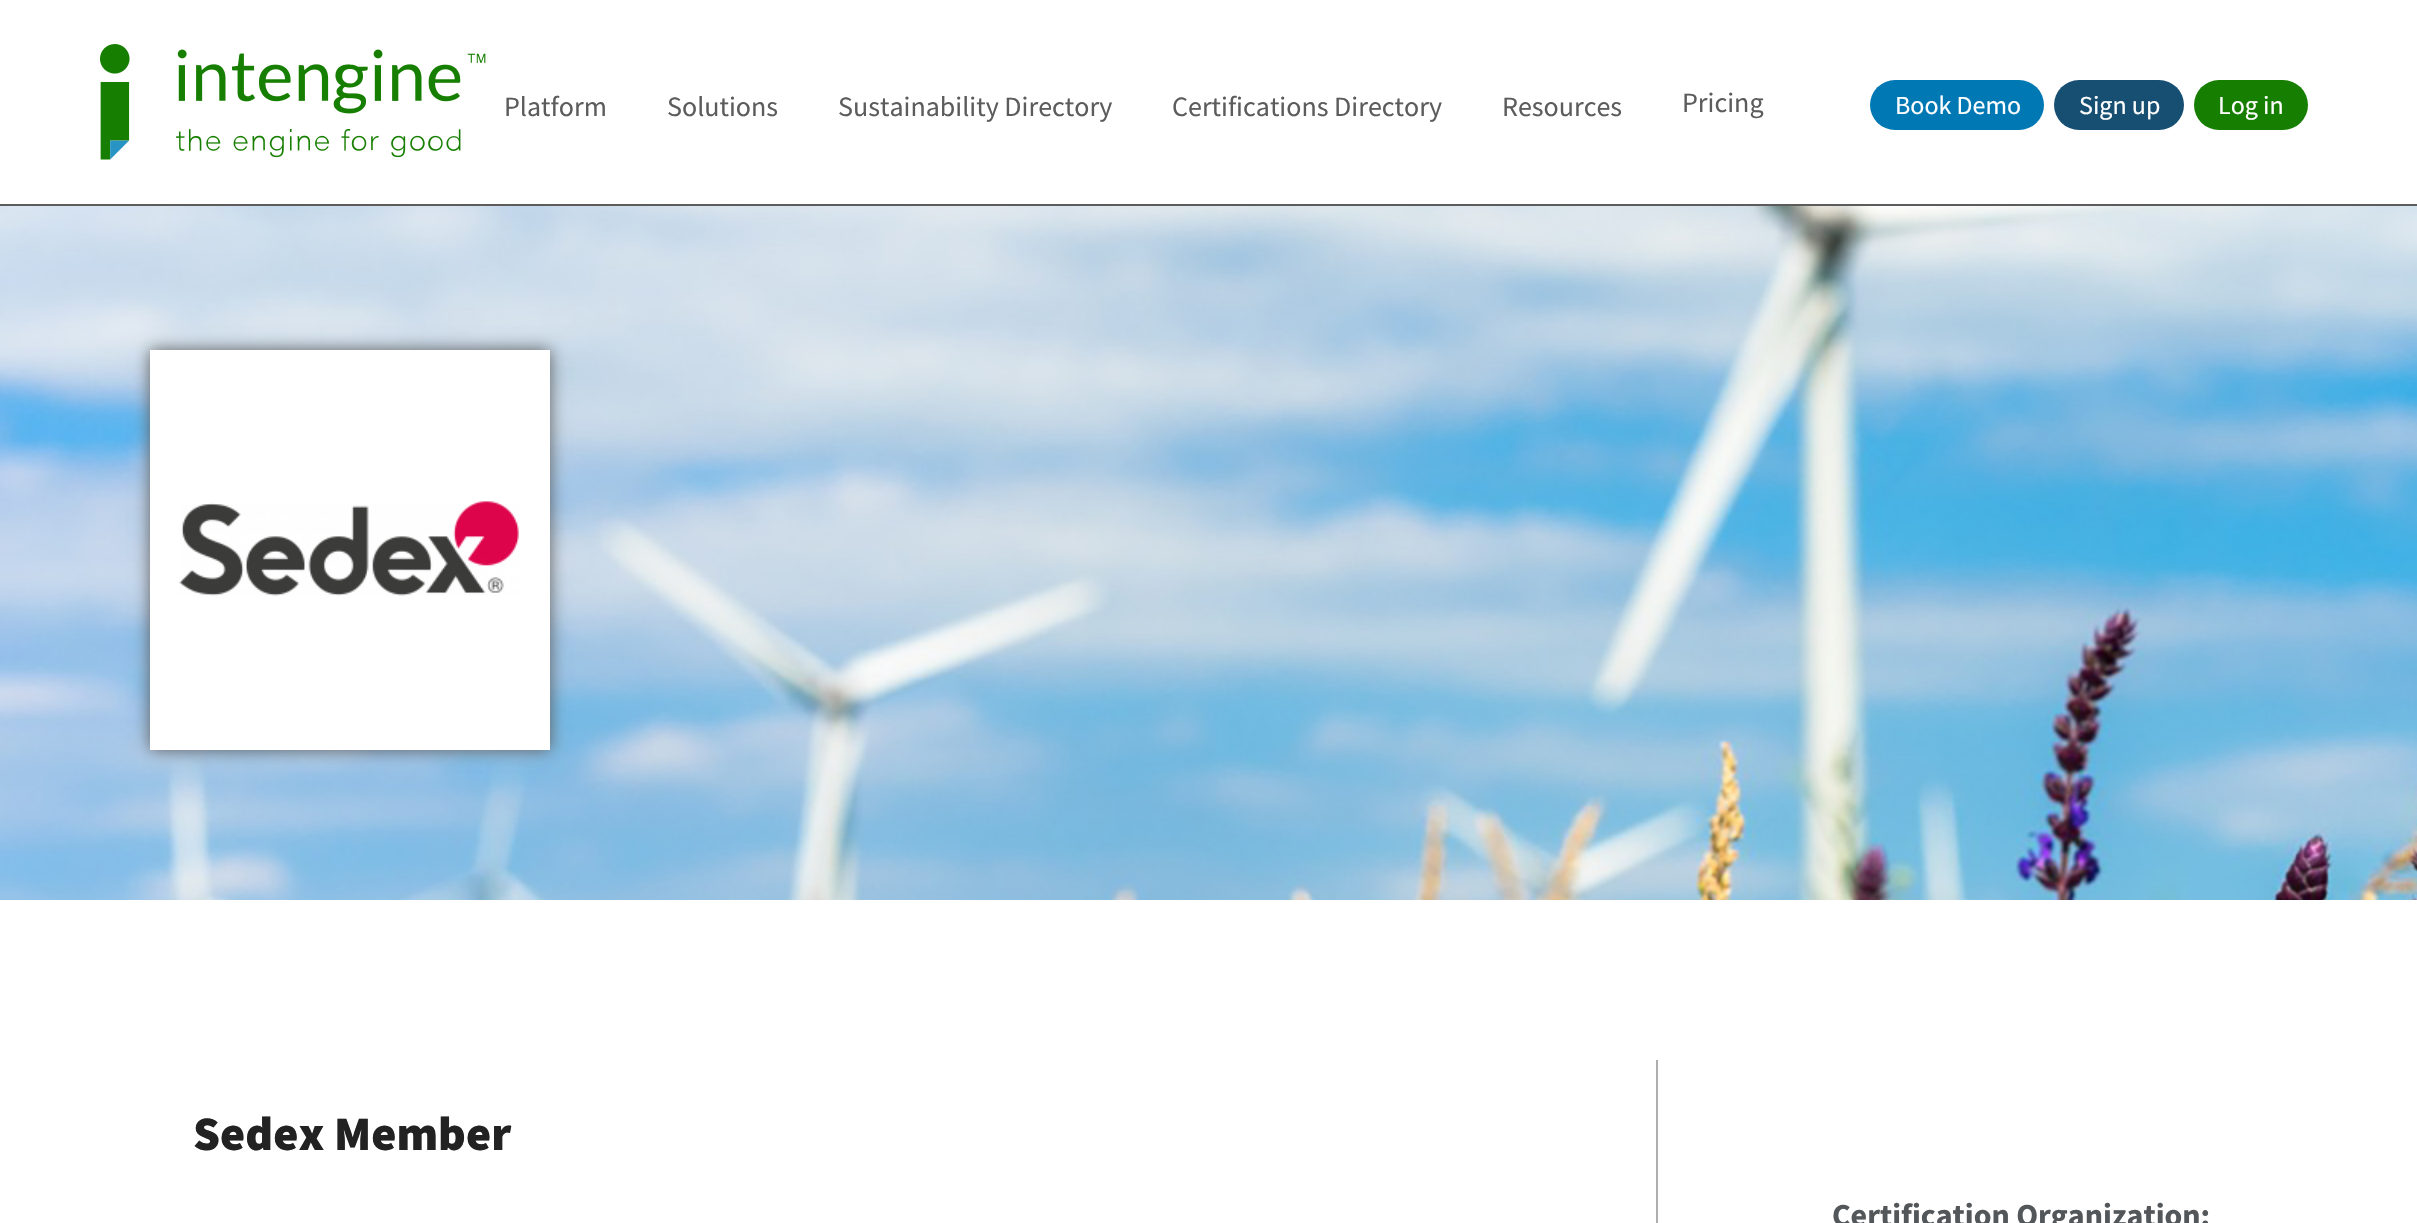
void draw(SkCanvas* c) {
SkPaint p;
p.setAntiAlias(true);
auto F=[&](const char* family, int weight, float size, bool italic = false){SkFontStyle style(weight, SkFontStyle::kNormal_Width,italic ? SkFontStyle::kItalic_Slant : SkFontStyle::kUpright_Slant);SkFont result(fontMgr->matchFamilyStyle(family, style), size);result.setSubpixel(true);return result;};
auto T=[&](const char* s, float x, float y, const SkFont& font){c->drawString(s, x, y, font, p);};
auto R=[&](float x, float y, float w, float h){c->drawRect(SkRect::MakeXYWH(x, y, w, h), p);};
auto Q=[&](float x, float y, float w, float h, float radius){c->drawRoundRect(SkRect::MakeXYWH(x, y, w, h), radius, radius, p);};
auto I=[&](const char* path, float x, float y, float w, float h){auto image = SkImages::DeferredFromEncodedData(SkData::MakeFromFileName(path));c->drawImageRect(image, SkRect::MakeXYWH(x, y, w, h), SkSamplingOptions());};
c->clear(0xffffffff);
p.setColor(0xff5c5c5c);
R(0,204,2417,2);
I("1.png",100,44,386,116);
auto f1 = F("Source Sans Pro",400,28);
T("Platform",504,116,f1);
T("Solutions",667,116,f1);
T("Sustainability Directory",838,116,f1);
T("Certifications Directory",1172,116,f1);
T("Resources",1502,116,f1);
T("Pricing",1682,112,f1);
p.setColor(0xff0078b4);
Q(1870,80,174,50,25);
auto f2 = F("Source Sans Pro",400,26);
p.setColor(0xffffffff);
T("Book Demo",1895,114,f2);
p.setColor(0xff174f73);
Q(2054,80,130,50,25);
p.setColor(0xffffffff);
T("Sign up",2079,114,f2);
p.setColor(0xff167e00);
Q(2194,80,114,50,25);
p.setColor(0xffffffff);
T("Log in",2218,114,f2);
I("2.png",0,206,2417,694);
p.setColor(0xff5c5c5c);
p.setMaskFilter(SkMaskFilter::MakeBlur(kNormal_SkBlurStyle, 8));
c->drawRect(SkRect::MakeXYWH(150,350,400,400),p);
p.setMaskFilter(nullptr);
p.setColor(0xffffffff);
R(150,350,400,400);
I("3.png",179,501,340,95);
p.setColor(0xffaeaeae);
R(1656,1060,2,163);
auto f3 = F("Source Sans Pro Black",900,48);
p.setColor(0xff222222);
T("Sedex Member",193,1150,f3);
auto f4 = F("Source Sans Pro",700,32);
p.setColor(0xff53575a);
T("Certification Organization:",1832,1226,f4);
}
